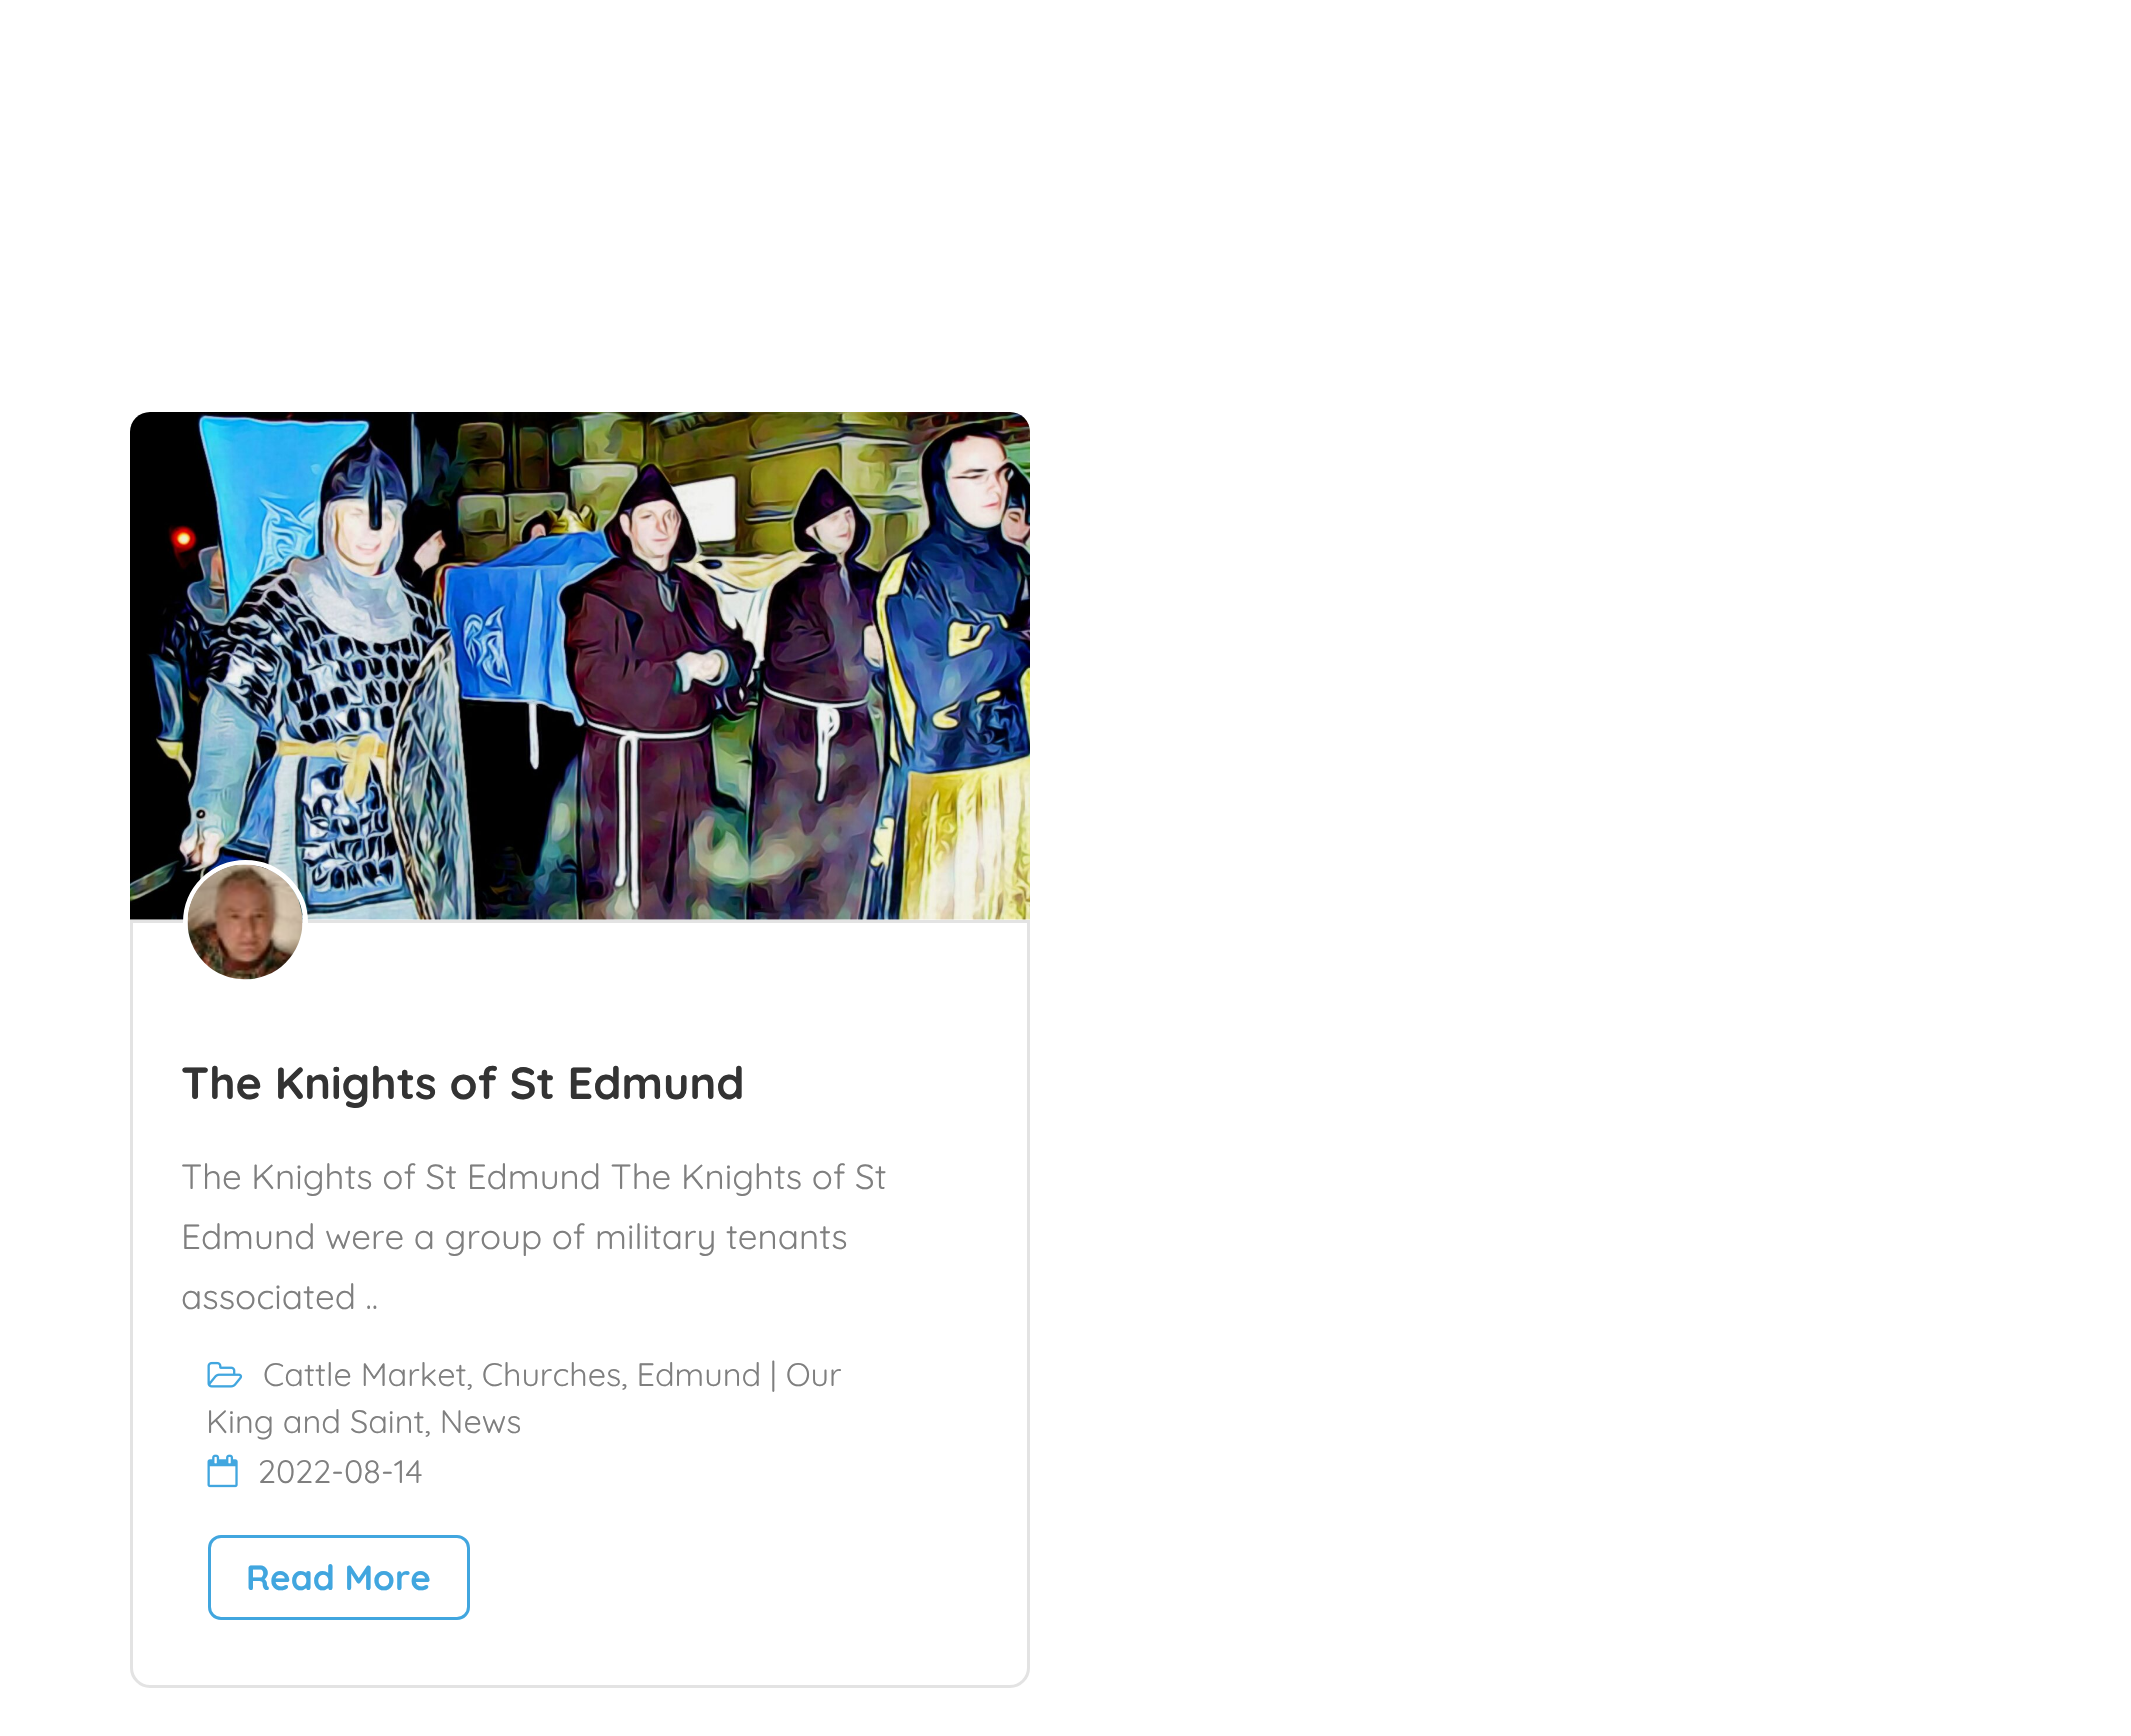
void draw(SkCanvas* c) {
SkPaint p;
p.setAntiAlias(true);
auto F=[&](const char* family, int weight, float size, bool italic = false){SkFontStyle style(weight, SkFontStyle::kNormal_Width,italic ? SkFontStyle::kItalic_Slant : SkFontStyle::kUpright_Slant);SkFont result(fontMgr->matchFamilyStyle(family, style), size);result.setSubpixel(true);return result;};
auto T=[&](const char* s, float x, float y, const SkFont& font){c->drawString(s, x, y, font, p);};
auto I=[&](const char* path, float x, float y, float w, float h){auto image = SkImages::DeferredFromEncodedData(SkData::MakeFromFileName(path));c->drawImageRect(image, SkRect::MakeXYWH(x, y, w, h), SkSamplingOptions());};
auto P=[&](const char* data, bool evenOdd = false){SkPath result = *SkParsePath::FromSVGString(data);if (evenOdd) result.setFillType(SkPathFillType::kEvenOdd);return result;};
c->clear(0xffffffff);
I("1.png",130,412,900,508);
p.setStroke(true);
p.setStrokeWidth(3);
p.setColor(0xffe3e3e3);
c->drawPath(P("M131.5 921.5h897v746.5c0 10-8.5 18.5-18.5 18.5h-860c-10 0-18.5-8.5-18.5-18.5z"),p);
p.setStrokeWidth(5);
p.setColor(0xffffffff);
c->drawCircle(245.5,922.5,60,p);
I("2.png",187,864,116,116);
auto f1 = F("Quicksand",700,45);
p.setStroke(false);
p.setColor(0xff333333);
T("The Knights of St Edmund",181,1099,f1);
auto f2 = F("Quicksand",400,35);
p.setColor(0xff7f7f7f);
T("The Knights of St Edmund The Knights of St",181,1189,f2);
T("Edmund were a group of military tenants",181,1249,f2);
T("associated ..",181,1309,f2);
I("3.png",207,1361,36,27);
auto f3 = F("Quicksand",400,32.5);
T("Cattle Market, Churches, Edmund | Our",263,1386,f3);
T("King and Saint, News",206,1433,f3);
I("4.png",207,1454,31,34);
T("2022-08-14",258,1483,f3);
p.setStroke(true);
p.setStrokeWidth(3);
p.setColor(0xff41a6df);
c->drawRoundRect(SkRect::MakeXYWH(209.5,1536.5,259,82),11.5,11.5,p);
auto f4 = F("Quicksand",700,35);
p.setStroke(false);
T("Read More",246,1590,f4);
}
